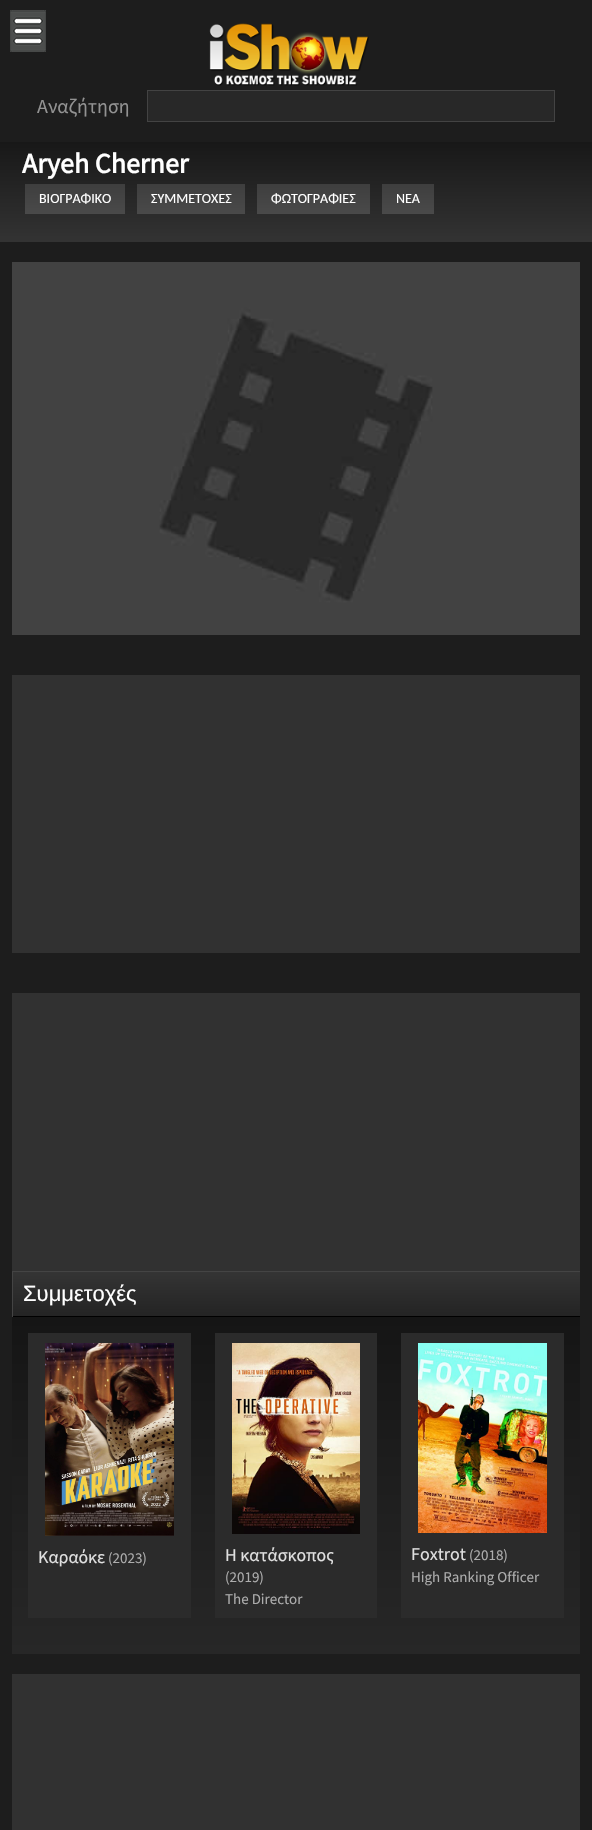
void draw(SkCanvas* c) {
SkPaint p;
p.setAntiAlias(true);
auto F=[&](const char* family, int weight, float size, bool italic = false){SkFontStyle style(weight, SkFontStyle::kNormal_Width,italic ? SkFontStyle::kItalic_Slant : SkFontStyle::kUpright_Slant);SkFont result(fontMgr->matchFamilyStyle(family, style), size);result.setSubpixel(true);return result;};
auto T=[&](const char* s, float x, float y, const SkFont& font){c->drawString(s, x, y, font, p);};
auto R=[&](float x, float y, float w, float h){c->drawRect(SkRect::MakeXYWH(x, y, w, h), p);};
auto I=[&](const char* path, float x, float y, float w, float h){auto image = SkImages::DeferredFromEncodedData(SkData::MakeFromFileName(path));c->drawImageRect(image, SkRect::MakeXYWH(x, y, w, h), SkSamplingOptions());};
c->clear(0xff1d1d1d);
I("1.png",10,10,36,42);
I("2.png",209,23,160,63);
auto f1 = F("Source Sans Pro",400,20);
p.setColor(0xff929292);
T("Αναζήτηση",37,113,f1);
p.setColor(0xff282828);
c->drawRect(SkRect::MakeXYWH(147.5,90.5,407,31),p);
p.setStroke(true);
p.setStrokeWidth(1);
p.setColor(0xff434343);
c->drawRect(SkRect::MakeXYWH(147.5,90.5,407,31),p);
p.setStroke(false);
{
const SkColor colors[] = {0xff181818,0xff333333};
const float stops[] = {0,1};
const SkPoint ends[] = {{296,142}, {296,242}};
p.setShader(SkGradientShader::MakeLinear(ends, colors, stops, 2, SkTileMode::kClamp));
p.setAlpha(255);
}
R(0,142,592,100);
auto f2 = F("Source Sans Pro",700,28);
p.setShader(nullptr);
p.setColor(0xffffffff);
T("Aryeh Cherner",22,173,f2);
{
const SkColor colors[] = {0xff3e3e3e,0xff4a4a4a};
const float stops[] = {0,1};
const SkPoint ends[] = {{75,184}, {75,214}};
p.setShader(SkGradientShader::MakeLinear(ends, colors, stops, 2, SkTileMode::kClamp));
p.setAlpha(255);
}
R(25,184,100,30);
auto f3 = F("Carlito",400,14);
p.setShader(nullptr);
p.setColor(0xffffffff);
T("ΒΙΟΓΡΑΦΙΚΟ",39,203,f3);
{
const SkColor colors[] = {0xff3e3e3e,0xff4a4a4a};
const float stops[] = {0,1};
const SkPoint ends[] = {{191,184}, {191,214}};
p.setShader(SkGradientShader::MakeLinear(ends, colors, stops, 2, SkTileMode::kClamp));
p.setAlpha(255);
}
R(137,184,108,30);
p.setShader(nullptr);
p.setColor(0xffffffff);
T("ΣΥΜΜΕΤΟΧΕΣ",151,203,f3);
{
const SkColor colors[] = {0xff3e3e3e,0xff4a4a4a};
const float stops[] = {0,1};
const SkPoint ends[] = {{314,184}, {314,214}};
p.setShader(SkGradientShader::MakeLinear(ends, colors, stops, 2, SkTileMode::kClamp));
p.setAlpha(255);
}
R(257,184,113,30);
p.setShader(nullptr);
p.setColor(0xffffffff);
T("ΦΩΤΟΓΡΑΦΙΕΣ",271,203,f3);
{
const SkColor colors[] = {0xff3e3e3e,0xff4a4a4a};
const float stops[] = {0,1};
const SkPoint ends[] = {{408,184}, {408,214}};
p.setShader(SkGradientShader::MakeLinear(ends, colors, stops, 2, SkTileMode::kClamp));
p.setAlpha(255);
}
R(382,184,52,30);
p.setShader(nullptr);
p.setColor(0xffffffff);
T("ΝΕΑ",396,203,f3);
I("3.png",12,262,568,373);
p.setColor(0xff313131);
R(12,675,568,278);
R(12,993,568,278);
{
const SkColor colors[] = {0xff343434,0xff242424};
const float stops[] = {0,1};
const SkPoint ends[] = {{297,1272}, {297,1316}};
p.setShader(SkGradientShader::MakeLinear(ends, colors, stops, 2, SkTileMode::kClamp));
p.setAlpha(255);
}
R(13,1272,567,44);
p.setShader(nullptr);
p.setColor(0xff444444);
R(12,1271,568,1);
p.setColor(0xff000000);
R(12,1316,568,1);
p.setColor(0xff444444);
R(12,1271,1,46);
auto f4 = F("Liberation Sans",400,22);
p.setColor(0xffffffff);
T("Συμμετοχές",23,1301,f4);
{
const SkColor colors[] = {0xff151515,0xff272727};
const float stops[] = {0,1};
const SkPoint ends[] = {{296,1317}, {296,1654}};
p.setShader(SkGradientShader::MakeLinear(ends, colors, stops, 2, SkTileMode::kClamp));
p.setAlpha(255);
}
R(12,1317,568,337);
p.setShader(nullptr);
p.setColor(0xff2b2b2b);
R(28,1333,163,285);
I("4.png",45,1343,129,193);
auto f5 = F("Source Sans Pro",400,18);
p.setColor(0xffe0e0e0);
T("Καραόκε",38,1563,f5);
auto f6 = F("Source Sans Pro",400,15);
p.setColor(0xffadadad);
T("(2023)",108,1563,f6);
p.setColor(0xff2b2b2b);
R(215,1333,162,285);
I("5.png",232,1343,128,191);
p.setColor(0xffe0e0e0);
T("Η κατάσκοπος",225,1561,f5);
p.setColor(0xffadadad);
T("(2019)",225,1582,f6);
T("The Director",225,1604,f6);
p.setColor(0xff2b2b2b);
R(401,1333,163,285);
I("6.png",418,1343,129,190);
p.setColor(0xffe0e0e0);
T("Foxtrot",411,1560,f5);
p.setColor(0xffadadad);
T("(2018)",469,1560,f6);
T("High Ranking Officer",411,1582,f6);
p.setColor(0xff313131);
R(12,1674,568,156);
}
